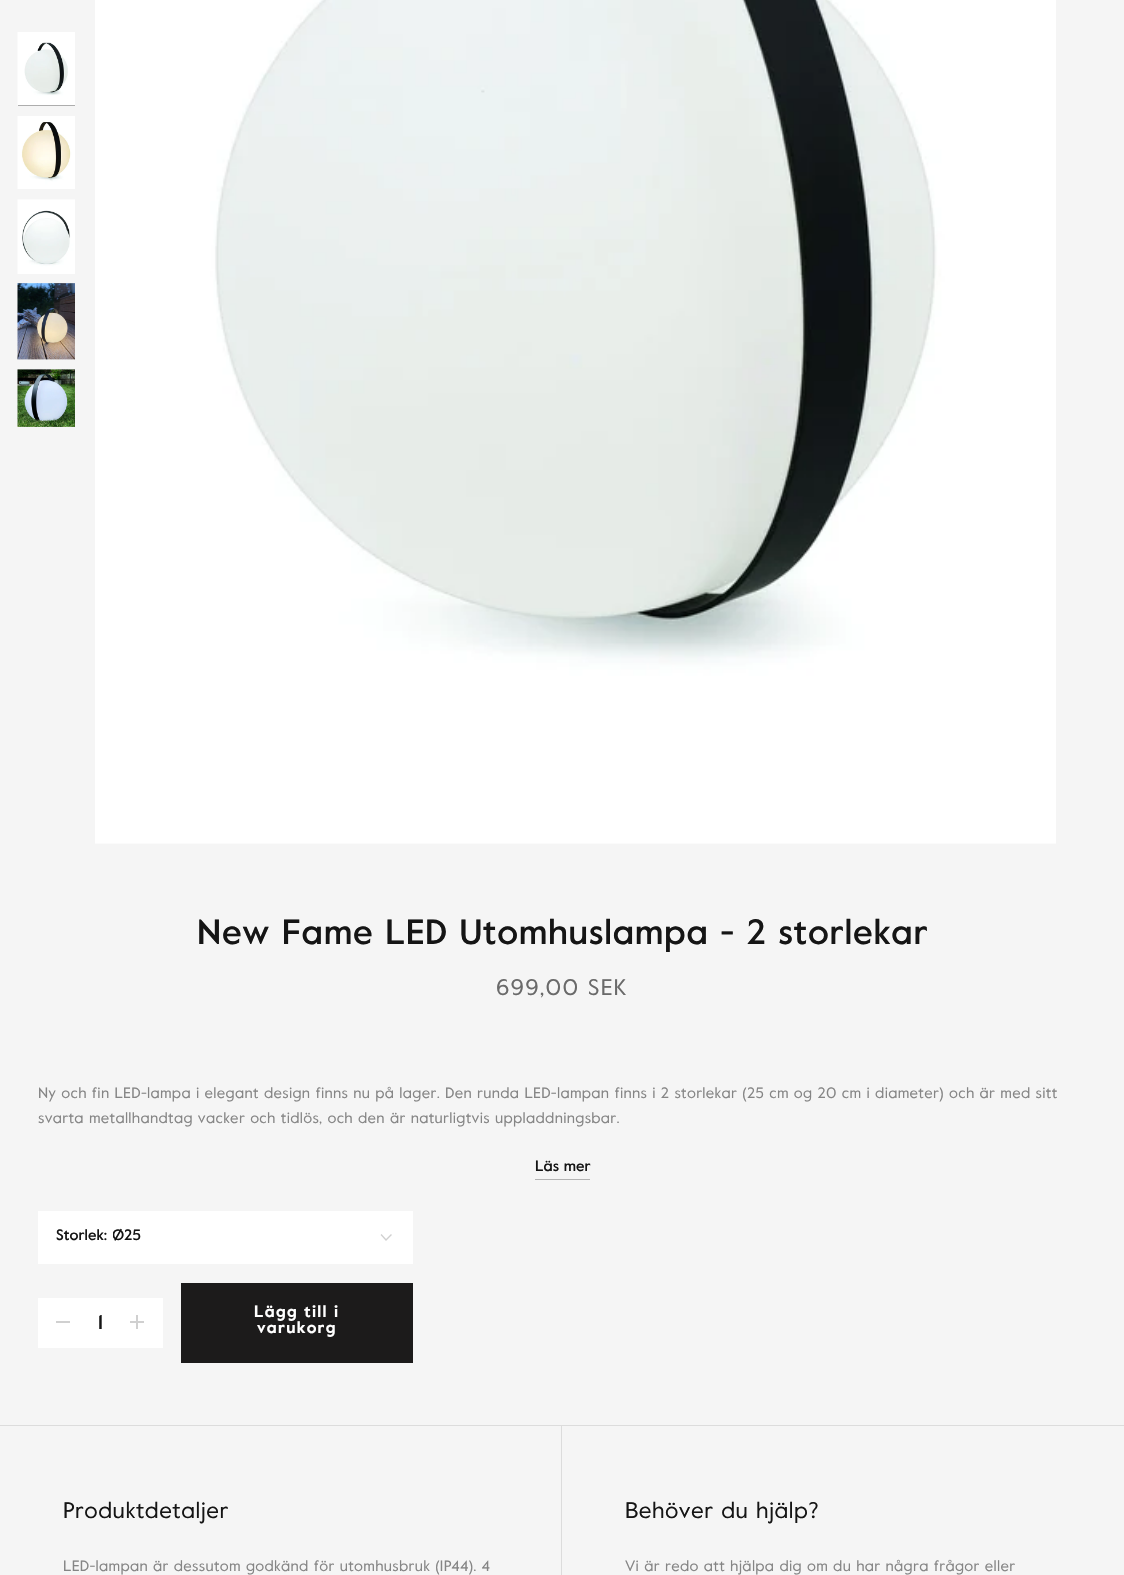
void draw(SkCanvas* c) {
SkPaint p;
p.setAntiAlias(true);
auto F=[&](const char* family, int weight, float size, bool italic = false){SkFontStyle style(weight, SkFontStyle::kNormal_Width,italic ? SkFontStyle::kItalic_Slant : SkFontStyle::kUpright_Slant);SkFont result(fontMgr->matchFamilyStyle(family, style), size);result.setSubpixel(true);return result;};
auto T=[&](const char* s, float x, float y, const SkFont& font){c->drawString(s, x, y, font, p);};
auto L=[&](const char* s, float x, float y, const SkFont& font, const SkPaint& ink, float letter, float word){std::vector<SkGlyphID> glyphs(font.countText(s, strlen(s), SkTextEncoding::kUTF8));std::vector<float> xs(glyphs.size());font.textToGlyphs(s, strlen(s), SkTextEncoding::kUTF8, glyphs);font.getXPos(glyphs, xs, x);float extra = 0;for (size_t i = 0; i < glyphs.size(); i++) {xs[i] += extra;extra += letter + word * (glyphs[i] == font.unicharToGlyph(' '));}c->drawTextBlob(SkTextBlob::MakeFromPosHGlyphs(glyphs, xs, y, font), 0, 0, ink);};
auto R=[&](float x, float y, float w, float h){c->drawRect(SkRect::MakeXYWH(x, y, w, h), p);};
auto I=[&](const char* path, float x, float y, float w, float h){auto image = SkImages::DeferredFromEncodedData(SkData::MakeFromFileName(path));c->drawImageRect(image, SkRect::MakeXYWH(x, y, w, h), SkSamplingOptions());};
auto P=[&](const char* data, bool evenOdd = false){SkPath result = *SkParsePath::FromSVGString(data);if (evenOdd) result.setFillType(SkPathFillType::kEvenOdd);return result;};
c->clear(0xfff5f5f5);
p.setColor(0xff151515);
R(18,105,57,1);
I("1.png",17,32,58,74);
I("2.png",17,116,58,73);
I("3.png",17,199,58,75);
I("4.png",17,283,58,77);
I("5.png",17,369,58,58);
I("6.png",95,0,961,844);
auto f1 = F("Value",500,35);
L("New Fame LED Utomhuslampa - 2 storlekar",197,944,f1,p,.7,0);
auto f2 = F("Value",400,22.5);
p.setColor(0xff6a6a6a);
L("699,00 SEK",496,995,f2,p,1.25,0);
auto f3 = F("Value",400,15);
p.setColor(0xff858585);
L("Ny och fin LED-lampa i elegant design finns nu på lager. Den runda LED-lampan finns i 2 storlekar (25 cm og 20 cm i diameter) och är med sitt",38,1098,f3,p,.31,0);
L("svarta metallhandtag vacker och tidlös, och den är naturligtvis uppladdningsbar.",38,1123,f3,p,.31,0);
auto f4 = F("Value",500,15);
p.setColor(0xff151515);
T("Läs mer",535,1171,f4);
p.setColor(0xffb2b2b2);
R(535,1179,55,1);
p.setColor(0xffffffff);
R(38,1211,375,53);
p.setColor(0xff151515);
T("Storlek:",56,1240,f4);
c->save();
c->clipRect(SkRect::MakeXYWH(113,1225,28,25));
T("Ø25",112,1240,f4);
c->restore();
p.setStroke(true);
p.setStrokeWidth(1.3);
p.setStrokeCap(SkPaint::kSquare_Cap);
p.setColor(0xffd0d0d0);
c->drawPath(P("M391 1235l-5 5l-4.5-5"),p);
p.setStroke(false);
p.setColor(0xffffffff);
R(38,1298,125,50);
p.setColor(0xffd0d0d0);
R(56,1321,14,2);
auto f5 = F("Value",500,20);
p.setColor(0xff151515);
T("1",98,1329,f5);
p.setColor(0xffd0d0d0);
R(136,1315,2,14);
R(130,1321,14,2);
p.setColor(0xff1c1b1b);
R(181,1283,232,80);
auto f6 = F("Value",700,16.25);
p.setColor(0xffffffff);
L("Lägg till i",254,1317,f6,p,1.25,0);
L("varukorg",257,1333,f6,p,1.25,0);
p.setColor(0xffdcdcdc);
R(0,1425,1124,1);
R(561,1426,1,149);
p.setColor(0xff151515);
L("Produktdetaljer",63,1518,f2,p,.5,0);
p.setColor(0xff858585);
L("LED-lampan är dessutom godkänd för utomhusbruk (IP44). 4",63,1571,f3,p,.31,0);
p.setColor(0xff151515);
L("Behöver du hjälp?",625,1518,f2,p,.5,0);
p.setColor(0xff858585);
L("Vi är redo att hjälpa dig om du har några frågor eller",625,1571,f3,p,.31,0);
}
